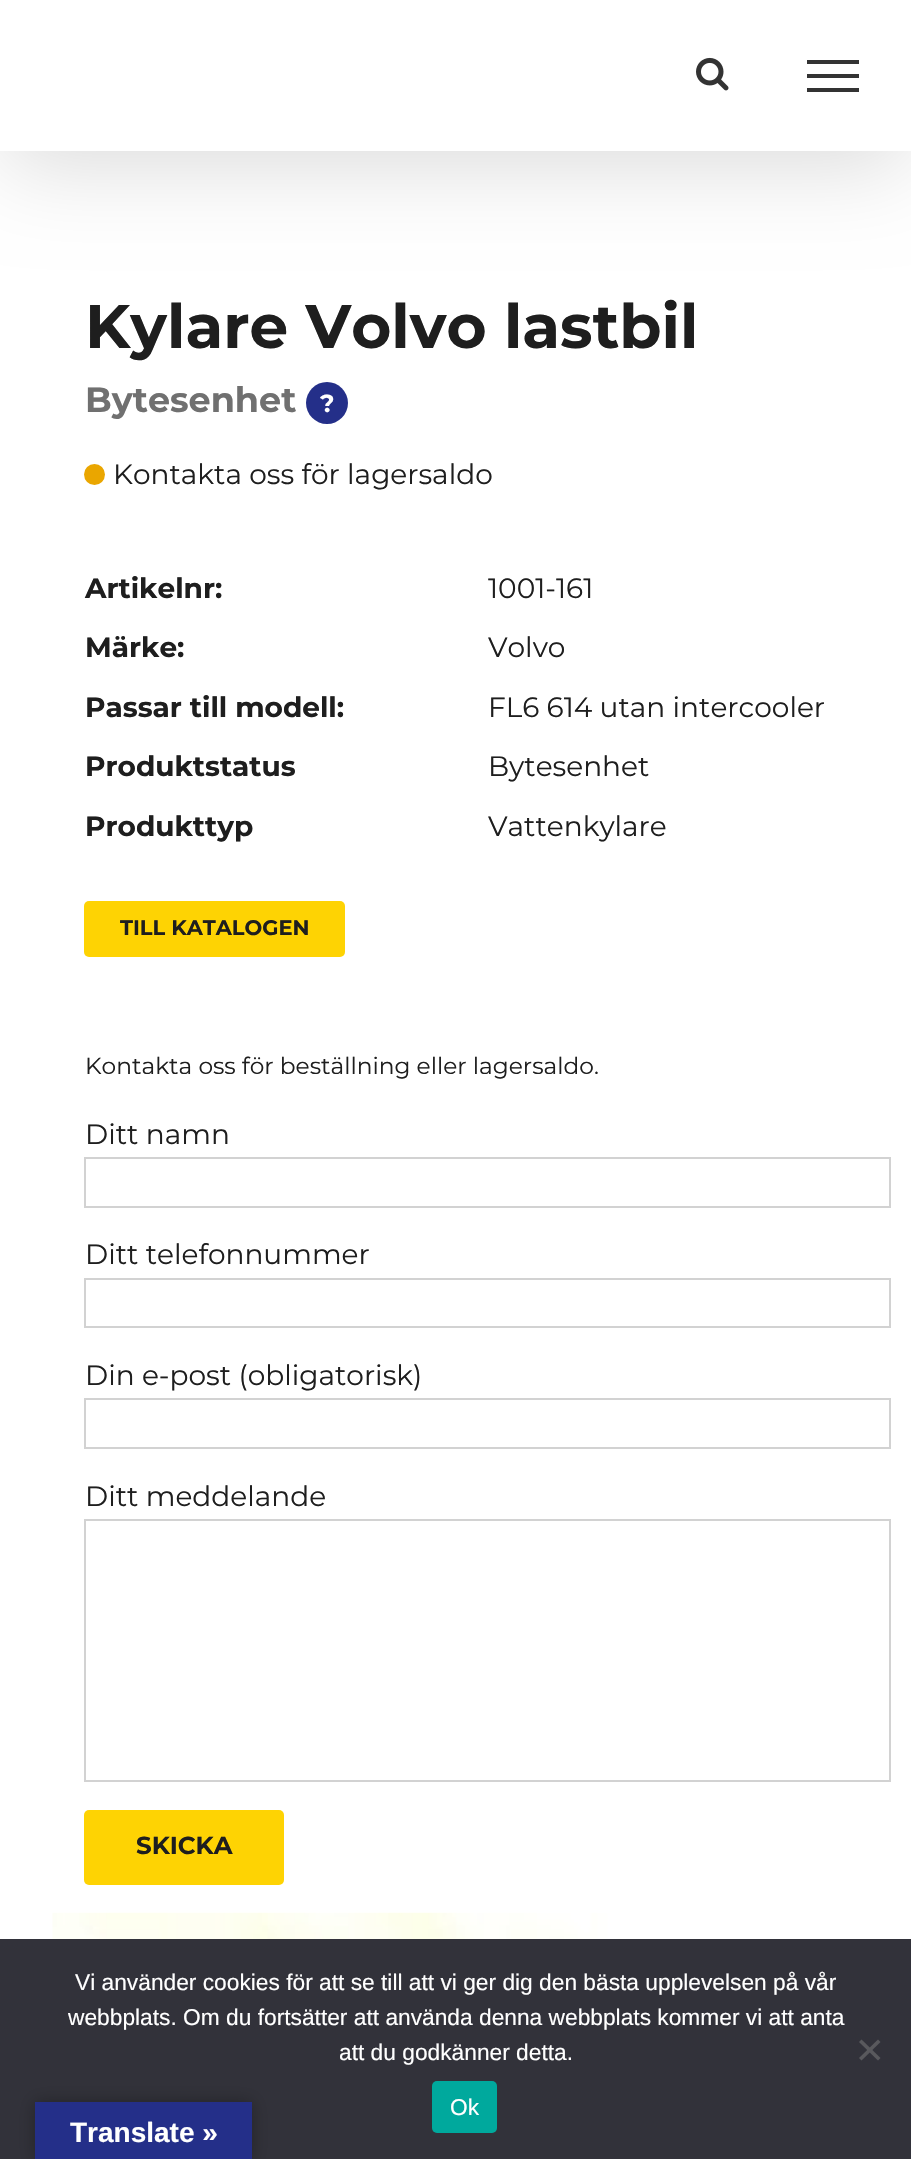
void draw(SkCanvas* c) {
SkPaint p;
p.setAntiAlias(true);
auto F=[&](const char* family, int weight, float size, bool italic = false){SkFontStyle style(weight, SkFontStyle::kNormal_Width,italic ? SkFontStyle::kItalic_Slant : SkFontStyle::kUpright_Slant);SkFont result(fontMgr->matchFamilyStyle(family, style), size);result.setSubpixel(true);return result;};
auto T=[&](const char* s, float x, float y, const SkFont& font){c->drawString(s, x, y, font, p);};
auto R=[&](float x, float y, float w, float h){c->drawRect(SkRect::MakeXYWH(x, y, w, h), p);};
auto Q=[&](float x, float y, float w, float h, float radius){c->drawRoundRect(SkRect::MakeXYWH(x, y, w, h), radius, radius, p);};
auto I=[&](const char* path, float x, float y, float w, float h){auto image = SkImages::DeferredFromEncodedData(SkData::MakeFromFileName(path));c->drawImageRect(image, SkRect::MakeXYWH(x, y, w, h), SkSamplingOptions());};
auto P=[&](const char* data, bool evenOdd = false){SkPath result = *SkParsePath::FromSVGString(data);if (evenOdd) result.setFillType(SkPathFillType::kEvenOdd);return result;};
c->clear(0xffffffff);
p.setColor(0x24000000);
p.setMaskFilter(SkMaskFilter::MakeBlur(kNormal_SkBlurStyle, 44));
c->drawRect(SkRect::MakeXYWH(4,21,904,144),p);
p.setMaskFilter(nullptr);
p.setColor(0xffffffff);
R(0,0,911,151);
I("1.png",696,57,33,34);
p.setColor(0xff333333);
R(807,60,52,4);
R(807,74,52,4);
R(807,88,52,4);
auto f1 = F("Montserrat",700,61.25);
p.setColor(0xff1e1e1e);
T("Kylare Volvo lastbil",85,348,f1);
auto f2 = F("Montserrat",700,35);
p.setColor(0xff707070);
T("Bytesenhet",85,412,f2);
p.setColor(0xff242f89);
c->drawCircle(327,403,21,p);
auto f3 = F("Montserrat",700,24.5);
p.setColor(0xffffffff);
T("?",320,412,f3);
p.setColor(0xffeaa600);
c->drawCircle(94.5,474.5,10.5,p);
auto f4 = F("Montserrat",400,28);
p.setColor(0xff1e1e1e);
T("Kontakta oss för lagersaldo",113,484,f4);
auto f5 = F("Montserrat",700,28);
T("Artikelnr:",85,598,f5);
T("1001-161",488,598,f4);
T("Märke:",85,657,f5);
T("Volvo",488,657,f4);
T("Passar till modell:",85,717,f5);
T("FL6 614 utan intercooler",488,717,f4);
T("Produktstatus",85,776,f5);
T("Bytesenhet",488,776,f4);
T("Produkttyp",85,836,f5);
T("Vattenkylare",488,836,f4);
p.setColor(0xfffed303);
Q(84,901,261,56,5);
auto f6 = F("Montserrat",700,21);
p.setColor(0xff1e1e1e);
T("TILL KATALOGEN",120,935,f6);
auto f7 = F("Montserrat",400,23.3);
T("Kontakta oss för beställning eller lagersaldo.",85,1074,f7);
T("Ditt namn",85,1144,f4);
p.setStroke(true);
p.setStrokeWidth(2);
p.setColor(0xffd2d2d2);
c->drawRect(SkRect::MakeXYWH(85,1158,805,49),p);
p.setStroke(false);
p.setColor(0xff1e1e1e);
T("Ditt telefonnummer",85,1264,f4);
p.setStroke(true);
p.setColor(0xffd2d2d2);
c->drawRect(SkRect::MakeXYWH(85,1279,805,48),p);
p.setStroke(false);
p.setColor(0xff1e1e1e);
T("Din e-post (obligatorisk)",85,1385,f4);
p.setStroke(true);
p.setColor(0xffd2d2d2);
c->drawRect(SkRect::MakeXYWH(85,1399,805,49),p);
p.setStroke(false);
p.setColor(0xff1e1e1e);
T("Ditt meddelande",85,1506,f4);
p.setStroke(true);
p.setColor(0xffd2d2d2);
c->drawRect(SkRect::MakeXYWH(85,1520,805,261),p);
p.setStroke(false);
p.setColor(0xfffed303);
Q(84,1810,200,75,5);
p.setColor(0xff1e1e1e);
T("SKICKA",136,1854,f3);
I("2.png",52,1912,781,27);
p.setColor(0xff32323a);
R(0,1939,911,220);
auto f8 = F("Liberation Sans",400,22.75);
p.setColor(0xffffffff);
T("Vi använder cookies för att se till att vi ger dig den bästa upplevelsen på vår",75,1990,f8);
T("webbplats. Om du fortsätter att använda denna webbplats kommer vi att anta",68,2025,f8);
T("att du godkänner detta.",339,2060,f8);
p.setColor(0xff59595d);
c->drawPath(P("M878 2039.5l2.5 2.5l-19 18.5l-2.5-2.5z"),p);
c->drawPath(P("M859 2042l2.5-2.5l19 18.5l-2.5 2.5z"),p);
p.setColor(0xff00a99d);
Q(432,2081,65,52,5);
p.setColor(0xffffffff);
T("Ok",450,2115,f8);
p.setColor(0x4d000000);
p.setMaskFilter(SkMaskFilter::MakeBlur(kNormal_SkBlurStyle, 8));
c->drawRect(SkRect::MakeXYWH(35,2102,217,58),p);
p.setMaskFilter(nullptr);
p.setColor(0xff242f89);
R(35,2102,217,57);
auto f9 = F("Liberation Sans",700,28);
p.setColor(0xffffffff);
T("Translate »",70,2142,f9);
}
